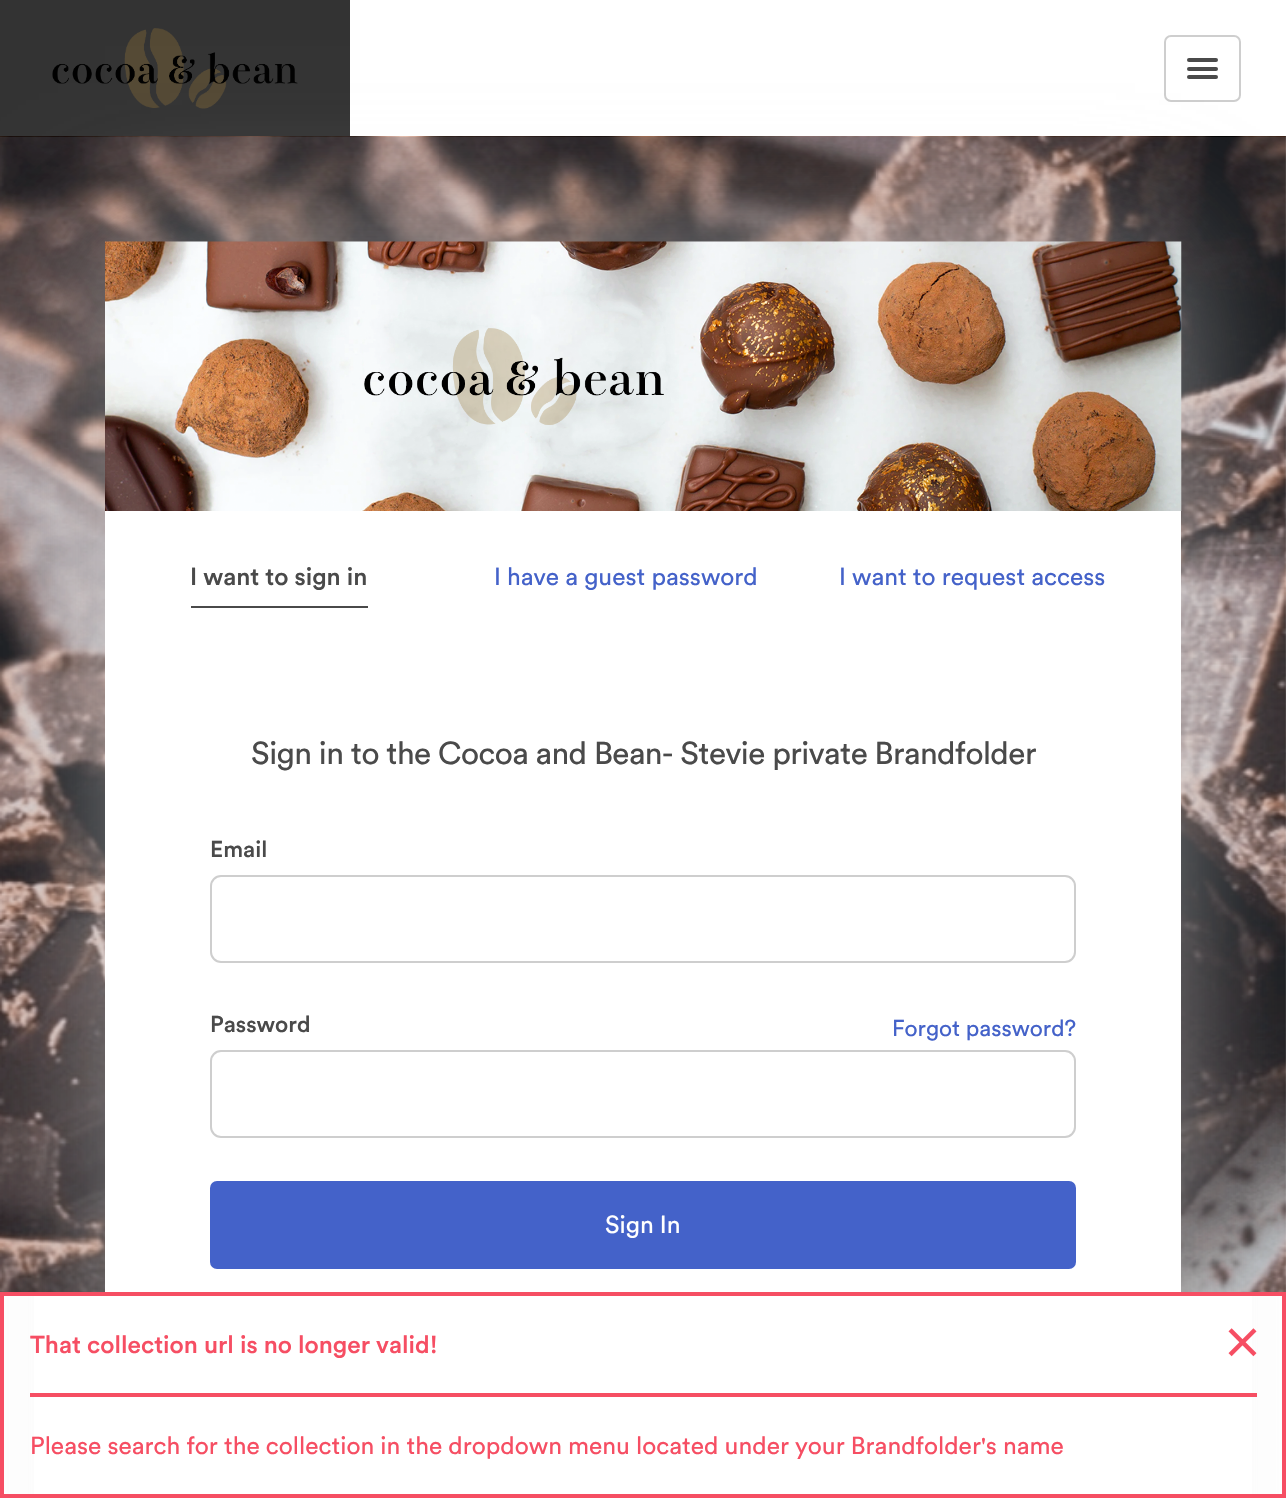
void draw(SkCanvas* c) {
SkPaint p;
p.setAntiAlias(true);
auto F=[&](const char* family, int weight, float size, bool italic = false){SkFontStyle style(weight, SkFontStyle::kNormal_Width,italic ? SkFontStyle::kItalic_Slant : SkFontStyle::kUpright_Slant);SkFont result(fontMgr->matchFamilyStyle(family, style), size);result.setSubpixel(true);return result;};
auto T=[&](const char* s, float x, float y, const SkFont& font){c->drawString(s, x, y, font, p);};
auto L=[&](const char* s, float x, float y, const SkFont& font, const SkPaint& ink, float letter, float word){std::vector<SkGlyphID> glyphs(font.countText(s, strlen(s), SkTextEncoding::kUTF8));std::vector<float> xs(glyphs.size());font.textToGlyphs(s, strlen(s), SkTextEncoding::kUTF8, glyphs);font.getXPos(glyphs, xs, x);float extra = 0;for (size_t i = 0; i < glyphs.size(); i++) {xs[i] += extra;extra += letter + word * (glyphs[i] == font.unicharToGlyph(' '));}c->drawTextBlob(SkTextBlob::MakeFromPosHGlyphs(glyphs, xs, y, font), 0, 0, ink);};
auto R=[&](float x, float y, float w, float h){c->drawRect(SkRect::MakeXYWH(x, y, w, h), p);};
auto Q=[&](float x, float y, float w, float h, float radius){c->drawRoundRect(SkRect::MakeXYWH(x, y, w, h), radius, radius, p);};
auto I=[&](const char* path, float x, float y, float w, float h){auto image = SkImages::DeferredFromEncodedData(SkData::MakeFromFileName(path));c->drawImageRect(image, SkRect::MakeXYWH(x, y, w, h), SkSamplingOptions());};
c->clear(0xffffffff);
p.setColor(0xff333333);
R(0,0,350,136);
I("1.png",52,28,246,81);
p.setStroke(true);
p.setStrokeWidth(2);
p.setColor(0xffcecece);
c->drawRoundRect(SkRect::MakeXYWH(1165,36,75,65),6,6,p);
p.setStroke(false);
p.setColor(0xff4a4a4a);
Q(1187,58,31,4,2);
Q(1187,67,31,4,2);
Q(1187,75,31,4,2);
I("2.png",0,136,1286,1156);
p.setColor(0x8cdddddd);
p.setMaskFilter(SkMaskFilter::MakeBlur(kNormal_SkBlurStyle, 65.5));
c->drawRect(SkRect::MakeXYWH(105,242,1076,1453),p);
p.setMaskFilter(nullptr);
I("3.png",105,241,1077,270);
p.setColor(0xffffffff);
R(105,511,1076,131);
auto f1 = F("Circular",500,24.5);
p.setColor(0xff4a4a4a);
T("I want to sign in",190,585,f1);
R(191,606,177,2);
auto f2 = F("Circular",400,24.5);
p.setColor(0xff4462c9);
T("I have a guest password",494,585,f2);
T("I want to request access",839,585,f2);
p.setColor(0xffffffff);
R(105,642,1076,650);
auto f3 = F("Circular",400,31.5);
p.setColor(0xff4a4a4a);
L("Sign in to the Cocoa and Bean- Stevie private Brandfolder",251,764,f3,p,-.53,0);
auto f4 = F("Circular",500,22.75);
T("Email",210,857,f4);
p.setStroke(true);
p.setColor(0xffcecece);
c->drawRoundRect(SkRect::MakeXYWH(211,876,864,86),10,10,p);
p.setStroke(false);
p.setColor(0xff4a4a4a);
T("Password",210,1032,f4);
auto f5 = F("Circular",400,22.75);
p.setColor(0xff4462c9);
T("Forgot password?",892,1036,f5);
p.setStroke(true);
p.setColor(0xffcecece);
c->drawRoundRect(SkRect::MakeXYWH(211,1051,864,86),10,10,p);
p.setStroke(false);
p.setColor(0xff4462c9);
Q(210,1181,866,88,7);
p.setColor(0xffffffff);
T("Sign In",605,1233,f2);
R(34,1296,1218,198);
p.setStroke(true);
p.setStrokeWidth(4);
p.setColor(0xfff64e63);
c->drawRect(SkRect::MakeXYWH(2,1294,1282,202),p);
p.setStroke(false);
T("That collection url is no longer valid!",30,1353,f1);
I("4.png",1228,1328,29,29);
R(30,1393,1227,4);
T("Please search for the collection in the dropdown menu located under your Brandfolder's name",30,1454,f2);
}
